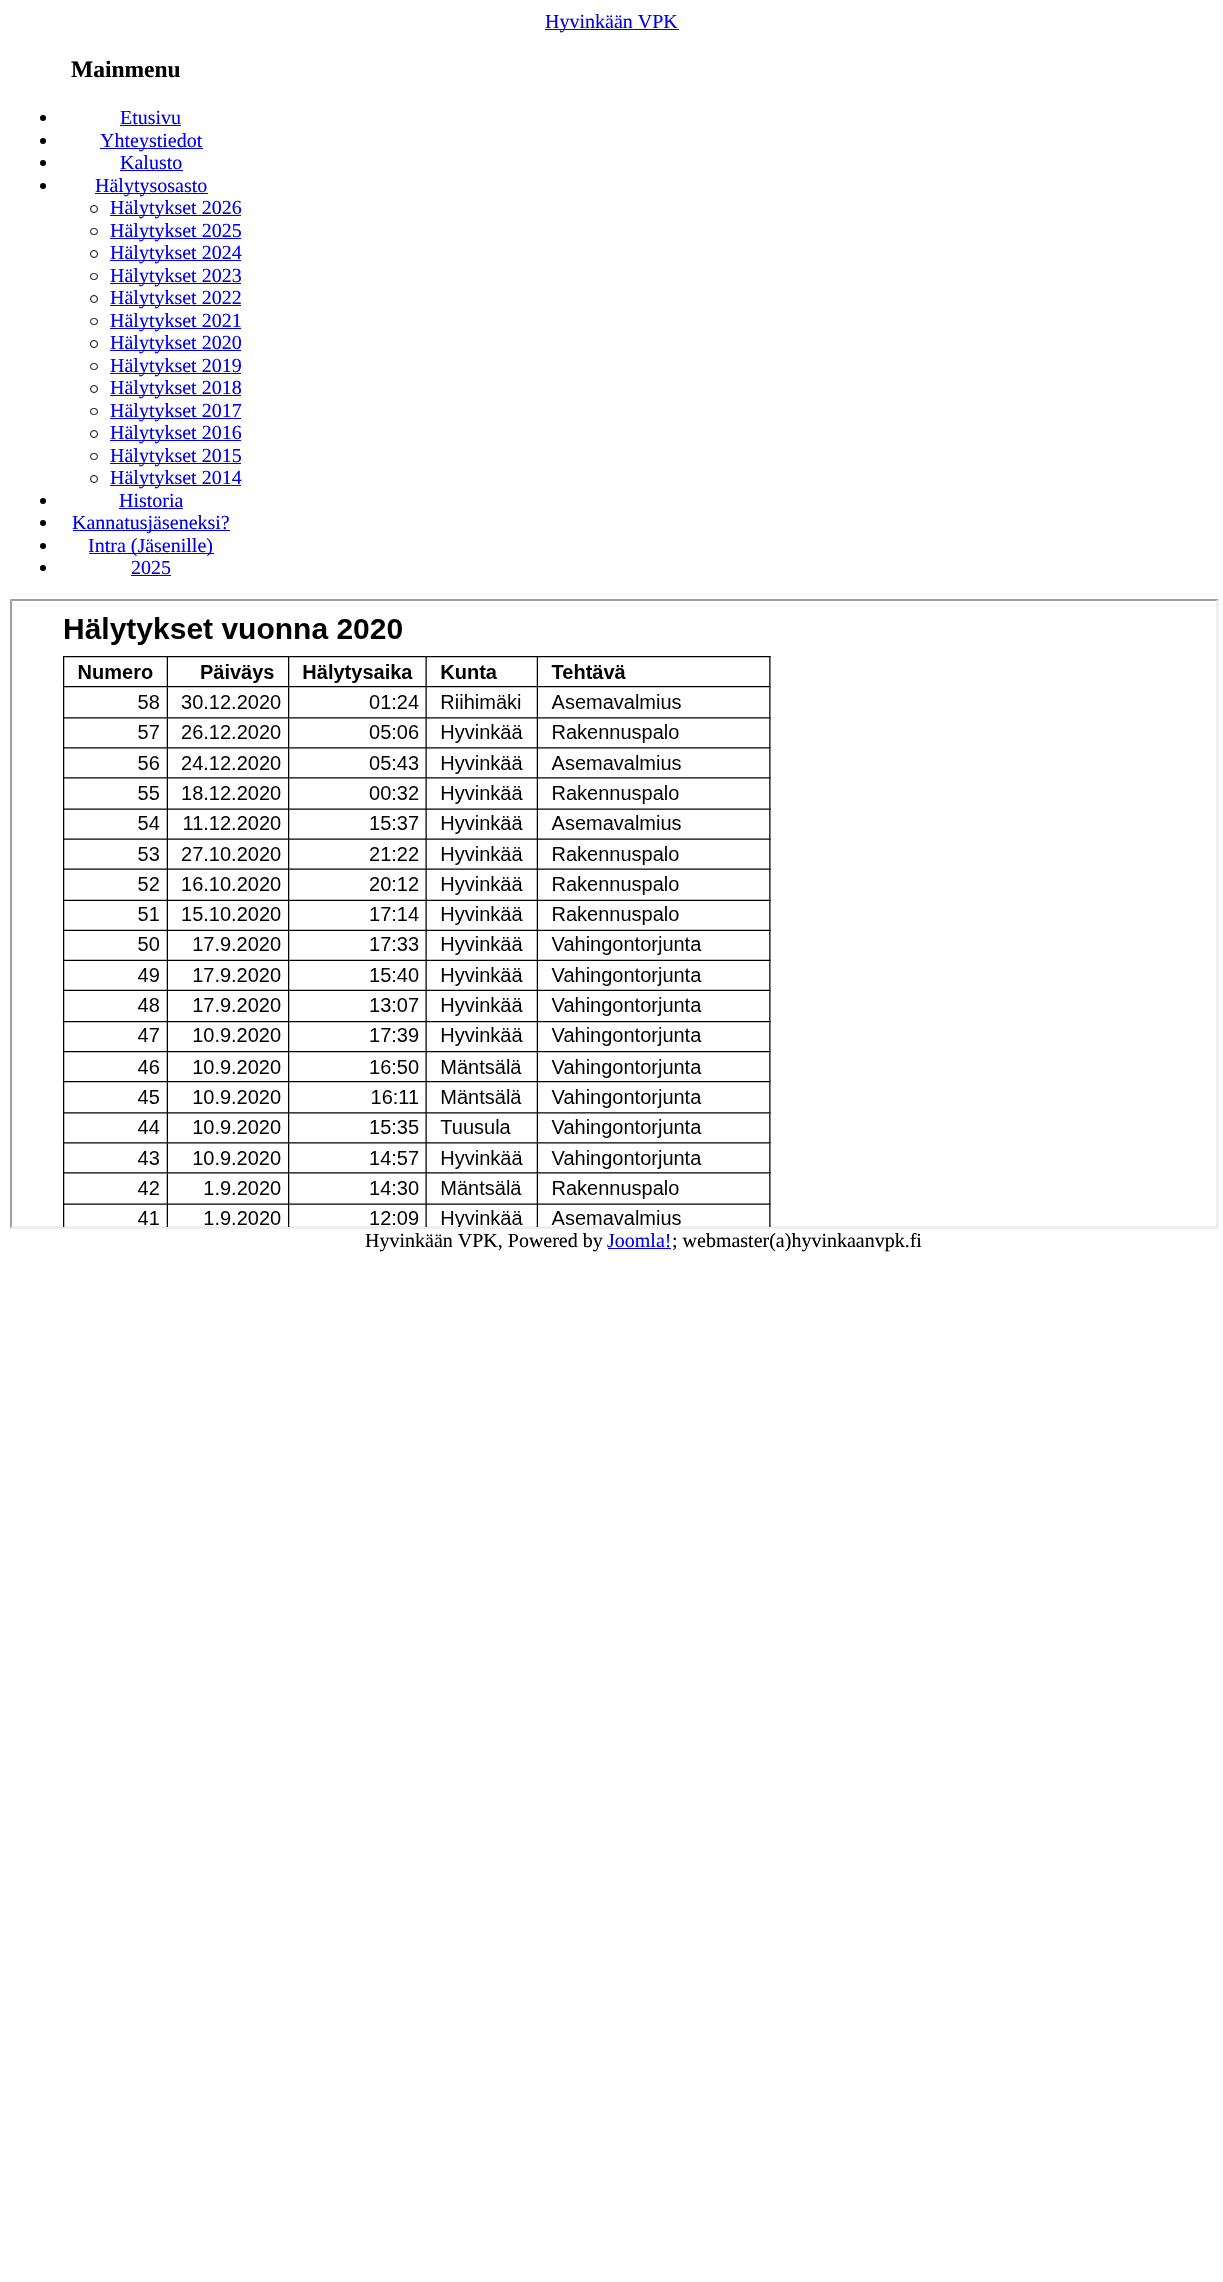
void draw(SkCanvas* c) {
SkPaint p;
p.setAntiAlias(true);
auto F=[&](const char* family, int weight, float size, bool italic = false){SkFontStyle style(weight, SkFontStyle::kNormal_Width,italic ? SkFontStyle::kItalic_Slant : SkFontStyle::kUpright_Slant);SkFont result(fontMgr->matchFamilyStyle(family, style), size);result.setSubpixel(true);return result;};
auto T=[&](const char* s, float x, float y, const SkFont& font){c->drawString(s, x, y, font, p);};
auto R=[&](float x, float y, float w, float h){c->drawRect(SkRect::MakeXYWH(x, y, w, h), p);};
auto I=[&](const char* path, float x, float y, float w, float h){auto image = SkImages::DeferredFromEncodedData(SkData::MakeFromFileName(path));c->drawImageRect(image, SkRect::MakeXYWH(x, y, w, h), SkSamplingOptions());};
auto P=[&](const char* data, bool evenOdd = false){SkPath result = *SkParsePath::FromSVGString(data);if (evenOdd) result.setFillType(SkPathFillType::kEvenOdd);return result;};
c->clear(0xffffffff);
p.setColor(0xff0000ee);
R(545,29,134,1);
auto f1 = F("Liberation Serif",400,20);
T("Hyvinkään VPK",545,28,f1);
auto f2 = F("Liberation Serif",700,23.5);
p.setColor(0xff000000);
T("Mainmenu",71,77,f2);
c->drawCircle(43,118,3,p);
p.setColor(0xff0000ee);
T("Etusivu",120,124,f1);
R(120,125,61,1);
p.setColor(0xff000000);
c->drawCircle(43,141,3,p);
p.setColor(0xff0000ee);
R(100,148,103,1);
T("Yhteystiedot",100,147,f1);
p.setColor(0xff000000);
c->drawCircle(43,163,3,p);
p.setColor(0xff0000ee);
T("Kalusto",120,169,f1);
R(120,170,63,1);
p.setColor(0xff000000);
c->drawCircle(43,186,3,p);
p.setColor(0xff0000ee);
R(95,193,113,1);
T("Hälytysosasto",95,192,f1);
p.setStroke(true);
p.setStrokeWidth(1);
p.setColor(0xff000000);
c->drawCircle(94,209,3.5,p);
p.setStroke(false);
p.setColor(0xff0000ee);
R(110,215,131,1);
T("Hälytykset 2026",110,214,f1);
p.setStroke(true);
p.setColor(0xff000000);
c->drawRoundRect(SkRect::MakeXYWH(90.5,228.5,7,6),3,3,p);
p.setStroke(false);
p.setColor(0xff0000ee);
R(110,238,131,1);
T("Hälytykset 2025",110,237,f1);
p.setStroke(true);
p.setColor(0xff000000);
c->drawCircle(94,254,3.5,p);
p.setStroke(false);
p.setColor(0xff0000ee);
R(110,260,131,1);
T("Hälytykset 2024",110,259,f1);
p.setStroke(true);
p.setColor(0xff000000);
c->drawRoundRect(SkRect::MakeXYWH(90.5,273.5,7,6),3,3,p);
p.setStroke(false);
p.setColor(0xff0000ee);
R(110,283,131,1);
T("Hälytykset 2023",110,282,f1);
p.setStroke(true);
p.setColor(0xff000000);
c->drawCircle(94,299,3.5,p);
p.setStroke(false);
p.setColor(0xff0000ee);
R(110,305,131,1);
T("Hälytykset 2022",110,304,f1);
p.setStroke(true);
p.setColor(0xff000000);
c->drawRoundRect(SkRect::MakeXYWH(90.5,318.5,7,6),3,3,p);
p.setStroke(false);
p.setColor(0xff0000ee);
R(110,328,131,1);
T("Hälytykset 2021",110,327,f1);
p.setStroke(true);
p.setColor(0xff000000);
c->drawCircle(94,344,3.5,p);
p.setStroke(false);
p.setColor(0xff0000ee);
R(110,350,131,1);
T("Hälytykset 2020",110,349,f1);
p.setStroke(true);
p.setColor(0xff000000);
c->drawRoundRect(SkRect::MakeXYWH(90.5,363.5,7,6),3,3,p);
p.setStroke(false);
p.setColor(0xff0000ee);
R(110,373,131,1);
T("Hälytykset 2019",110,372,f1);
p.setStroke(true);
p.setColor(0xff000000);
c->drawCircle(94,389,3.5,p);
p.setStroke(false);
p.setColor(0xff0000ee);
R(110,395,131,1);
T("Hälytykset 2018",110,394,f1);
p.setStroke(true);
p.setColor(0xff000000);
c->drawRoundRect(SkRect::MakeXYWH(90.5,408.5,7,6),3,3,p);
p.setStroke(false);
p.setColor(0xff0000ee);
R(110,418,131,1);
T("Hälytykset 2017",110,417,f1);
p.setStroke(true);
p.setColor(0xff000000);
c->drawCircle(94,434,3.5,p);
p.setStroke(false);
p.setColor(0xff0000ee);
R(110,440,131,1);
T("Hälytykset 2016",110,439,f1);
p.setStroke(true);
p.setColor(0xff000000);
c->drawRoundRect(SkRect::MakeXYWH(90.5,453.5,7,6),3,3,p);
p.setStroke(false);
p.setColor(0xff0000ee);
R(110,463,131,1);
T("Hälytykset 2015",110,462,f1);
p.setStroke(true);
p.setColor(0xff000000);
c->drawCircle(94,479,3.5,p);
p.setStroke(false);
p.setColor(0xff0000ee);
R(110,485,131,1);
T("Hälytykset 2014",110,484,f1);
p.setColor(0xff000000);
c->drawCircle(43,501,3,p);
p.setColor(0xff0000ee);
T("Historia",119,507,f1);
R(119,508,64,1);
p.setColor(0xff000000);
c->drawCircle(43,523,3,p);
p.setColor(0xff0000ee);
R(73,530,157,1);
T("Kannatusjäseneksi?",72,529,f1);
p.setColor(0xff000000);
c->drawCircle(43,546,3,p);
p.setColor(0xff0000ee);
R(89,553,125,1);
T("Intra (Jäsenille)",88,552,f1);
p.setColor(0xff000000);
c->drawCircle(43,568,3,p);
p.setColor(0xff0000ee);
T("2025",131,574,f1);
R(131,575,40,1);
p.setColor(0xff9f9f9f);
c->drawPath(P("M10 599h1209l-3 2h-1204z"),p);
p.setColor(0xffeeeeee);
c->drawPath(P("M1219 599v630l-3-3v-625z"),p);
c->drawPath(P("M1219 1229h-1209l2-3h1204z"),p);
p.setColor(0xff9f9f9f);
c->drawPath(P("M10 1229v-630l2 2v625z"),p);
I("1.png",63,617,708,610);
p.setColor(0xff000000);
T("Hyvinkään VPK, Powered by",365,1247,f1);
p.setColor(0xff0000ee);
T("Joomla!",607,1247,f1);
R(608,1248,63,1);
p.setColor(0xff000000);
T("; webmaster(a)hyvinkaanvpk.fi",672,1247,f1);
}
